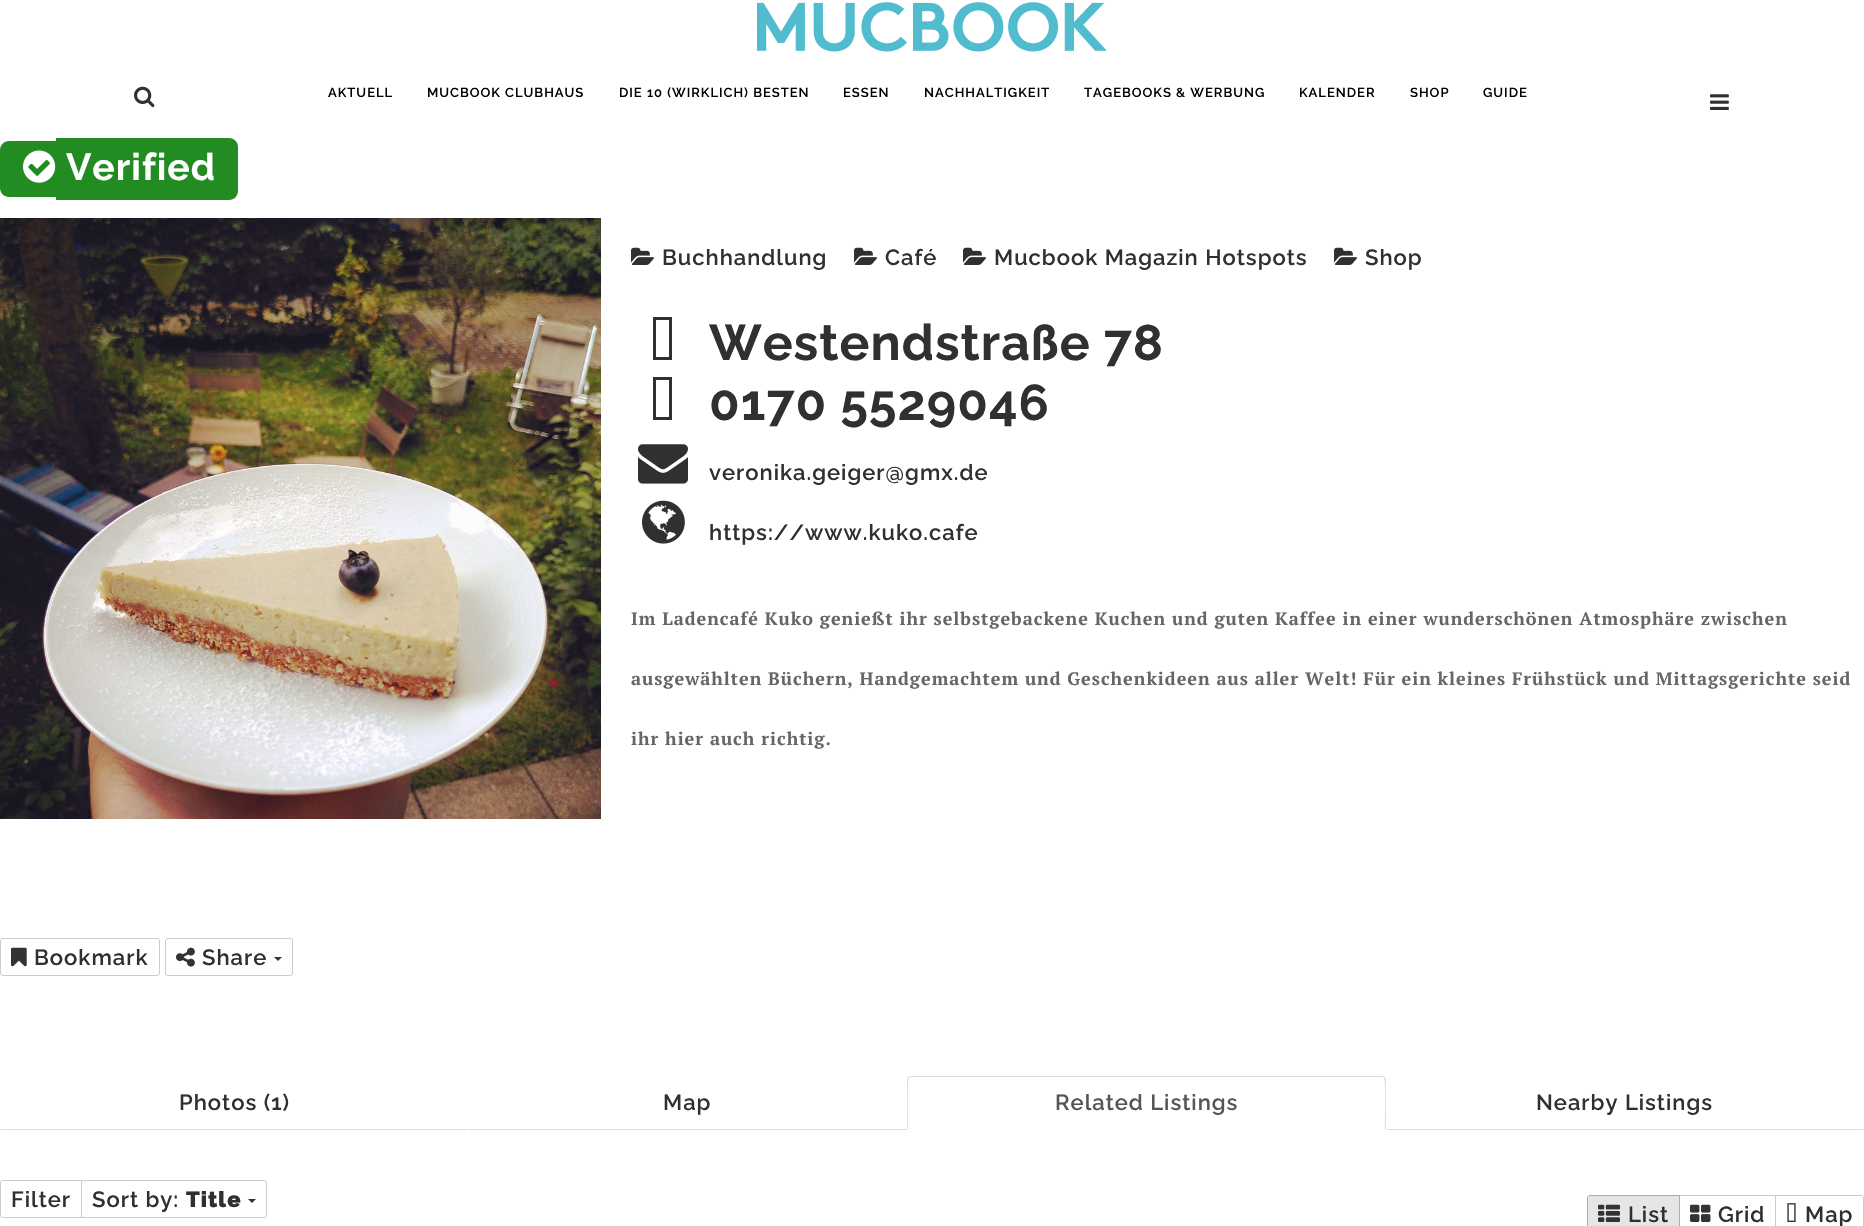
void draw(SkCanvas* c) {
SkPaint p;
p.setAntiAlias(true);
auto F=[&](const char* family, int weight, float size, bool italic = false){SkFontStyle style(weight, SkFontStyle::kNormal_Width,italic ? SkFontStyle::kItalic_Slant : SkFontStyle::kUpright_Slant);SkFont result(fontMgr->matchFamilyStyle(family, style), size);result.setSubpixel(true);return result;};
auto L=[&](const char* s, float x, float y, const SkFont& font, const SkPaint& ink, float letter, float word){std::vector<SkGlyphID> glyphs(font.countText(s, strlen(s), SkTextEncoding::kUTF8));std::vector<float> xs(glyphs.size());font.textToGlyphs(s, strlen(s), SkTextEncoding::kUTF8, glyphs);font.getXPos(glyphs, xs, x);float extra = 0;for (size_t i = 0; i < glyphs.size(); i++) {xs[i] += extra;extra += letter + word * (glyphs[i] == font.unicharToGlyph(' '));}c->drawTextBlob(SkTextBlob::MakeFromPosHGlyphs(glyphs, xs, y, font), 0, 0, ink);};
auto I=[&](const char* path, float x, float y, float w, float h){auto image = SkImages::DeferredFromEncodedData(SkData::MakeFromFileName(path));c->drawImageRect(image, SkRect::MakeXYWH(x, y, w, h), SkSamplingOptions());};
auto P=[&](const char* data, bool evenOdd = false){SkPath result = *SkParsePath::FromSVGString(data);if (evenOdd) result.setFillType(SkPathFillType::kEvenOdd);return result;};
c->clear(0xffffffff);
I("1.png",757,2,350,50);
I("2.png",134,86,21,22);
auto f1 = F("Raleway",600,13);
p.setColor(0xff000000);
L("AKTUELL",328,97,f1,p,1,0);
L("MUCBOOK CLUBHAUS",427,97,f1,p,1,0);
L("DIE 10 (WIRKLICH) BESTEN",619,97,f1,p,1,0);
L("ESSEN",843,97,f1,p,1,0);
L("NACHHALTIGKEIT",924,97,f1,p,1,0);
L("TAGEBOOKS & WERBUNG",1084,97,f1,p,1,0);
L("KALENDER",1299,97,f1,p,1,0);
L("SHOP",1410,97,f1,p,1,0);
L("GUIDE",1483,97,f1,p,1,0);
I("3.png",1710,94,19,16);
p.setColor(0xff228b22);
c->drawPath(P("M9 141h47v56h-47c-5 0-9-4-9-9v-38c0-5 4-9 9-9z"),p);
c->drawPath(P("M56 138h173c5 0 9 4 9 9v44c0 5-4 9-9 9h-173z"),p);
I("4.png",23,150,33,33);
auto f2 = F("Raleway",700,37.5);
p.setColor(0xffffffff);
L("Verified",66,180,f2,p,1,0);
I("5.png",0,218,601,601);
I("6.png",631,247,23,18);
auto f3 = F("Raleway",600,22);
p.setColor(0xff303030);
L("Buchhandlung",662,265,f3,p,1,0);
I("6.png",854,247,23,18);
L("Café",885,265,f3,p,1,0);
I("6.png",963,247,23,18);
L("Mucbook Magazin Hotspots",994,265,f3,p,1,0);
I("6.png",1334,247,23,18);
L("Shop",1365,265,f3,p,1,0);
c->drawPath(P("M656 357h13v-37h-13zm-3 3v-43h19v43z"),p);
auto f4 = F("Raleway",700,50);
L("Westendstraße 78",709,360,f4,p,1,0);
c->drawPath(P("M656 417h13v-37h-13zm-3 3v-43h19v43z"),p);
L("0170 5529046",709,420,f4,p,1,0);
I("7.png",638,444,50,40);
L("veronika.geiger@gmx.de",709,480,f3,p,1,0);
I("8.png",642,500,43,44);
L("https://www.kuko.cafe",709,540,f3,p,1,0);
auto f5 = F("PT Serif",700,18);
p.setColor(0xff666666);
L("Im Ladencafé Kuko genießt ihr selbstgebackene Kuchen und guten Kaffee in einer wunderschönen Atmosphäre zwischen",631,625,f5,p,1,0);
L("ausgewählten Büchern, Handgemachtem und Geschenkideen aus aller Welt! Für ein kleines Frühstück und Mittagsgerichte seid",631,685,f5,p,1,0);
L("ihr hier auch richtig.",631,745,f5,p,1,0);
p.setStroke(true);
p.setStrokeWidth(1);
p.setColor(0xffcccccc);
c->drawRoundRect(SkRect::MakeXYWH(.5,938.5,159,37),2.5,2.5,p);
I("9.png",11,947,16,20);
p.setStroke(false);
p.setColor(0xff303030);
L("Bookmark",34,965,f3,p,1,0);
p.setStroke(true);
p.setColor(0xffcccccc);
c->drawRoundRect(SkRect::MakeXYWH(165.5,938.5,127,37),2.5,2.5,p);
I("10.png",176,947,19,20);
p.setStroke(false);
p.setColor(0xff303030);
L("Share",202,965,f3,p,1,0);
p.setColor(0xff333333);
c->drawPath(P("M274 957h8l-4 4z"),p);
p.setColor(0xffdddddd);
c->drawPath(P("M468 1130l-1-1h-466l-1 1z"),p);
p.setColor(0xff303030);
L("Photos (1)",179,1110,f3,p,1,0);
p.setColor(0xffdddddd);
c->drawPath(P("M907 1130l-1-1h-437l-1 1z"),p);
p.setColor(0xff303030);
L("Map",663,1110,f3,p,1,0);
p.setColor(0xffdddddd);
c->drawPath(P("M911 1076l-3 1l1 1l2-1h471l2 1l1-1l-3-1z"),p);
c->drawPath(P("M1386 1130v-50l-1-3l-1 1c2 2 1 45 1 51z"),p);
p.setColor(0xffffffff);
c->drawPath(P("M1386 1130l-1-1h-477l-1 1z"),p);
p.setColor(0xffdddddd);
c->drawPath(P("M907 1130l1-1c0-6-1-49 1-51l-1-1l-1 3z"),p);
p.setColor(0xff555555);
L("Related Listings",1055,1110,f3,p,1,0);
p.setColor(0xffdddddd);
c->drawPath(P("M1864 1130l-1-1h-476l-1 1z"),p);
p.setColor(0xff303030);
L("Nearby Listings",1536,1110,f3,p,1,0);
p.setStroke(true);
p.setColor(0xffcccccc);
c->drawPath(P("M3 1180.5h78.5v37h-78.5c-1.5 0-2.5-1-2.5-2.5v-32c0-1.5 1-2.5 2.5-2.5z"),p);
p.setStroke(false);
p.setColor(0xff303030);
L("Filter",11,1207,f3,p,1,0);
p.setColor(0xffffffff);
c->drawPath(P("M81.5 1180.5h182.5c1.5 0 2.5 1 2.5 2.5v32c0 1.5-1 2.5-2.5 2.5h-182.5z"),p);
p.setStroke(true);
p.setColor(0xffcccccc);
c->drawPath(P("M81.5 1180.5h182.5c1.5 0 2.5 1 2.5 2.5v32c0 1.5-1 2.5-2.5 2.5h-182.5z"),p);
p.setStroke(false);
p.setColor(0xff303030);
L("Sort by:",92,1207,f3,p,1,0);
auto f6 = F("Raleway",900,22);
L("Title",186,1207,f6,p,1,0);
p.setColor(0xff333333);
c->drawPath(P("M248 1199h8l-4 4z"),p);
p.setStroke(true);
p.setColor(0xffcccccc);
c->drawRect(SkRect::MakeXYWH(1679.5,1195.5,96,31),p);
p.setStroke(false);
p.setColor(0xffe6e6e6);
c->drawPath(P("M1590 1195.5h89.5v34h-89.5c-1.5 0-2.5-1-2.5-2.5v-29c0-1.5 1-2.5 2.5-2.5z"),p);
p.setStroke(true);
p.setColor(0xffadadad);
c->drawPath(P("M1590 1195.5h89.5v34h-89.5c-1.5 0-2.5-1-2.5-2.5v-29c0-1.5 1-2.5 2.5-2.5z"),p);
I("11.png",1598,1204,22,18);
p.setStroke(false);
p.setColor(0xff303030);
L("List",1628,1222,f3,p,1,0);
I("12.png",1690,1204,21,18);
L("Grid",1718,1222,f3,p,1,0);
p.setColor(0xffffffff);
c->drawPath(P("M1775.5 1195.5h85.5c1.5 0 2.5 1 2.5 2.5v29c0 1.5-1 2.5-2.5 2.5h-85.5z"),p);
p.setStroke(true);
p.setColor(0xffcccccc);
c->drawPath(P("M1775.5 1195.5h85.5c1.5 0 2.5 1 2.5 2.5v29c0 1.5-1 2.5-2.5 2.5h-85.5z"),p);
I("13.png",1787,1203,9,19);
p.setStroke(false);
p.setColor(0xff303030);
L("Map",1805,1222,f3,p,1,0);
}
